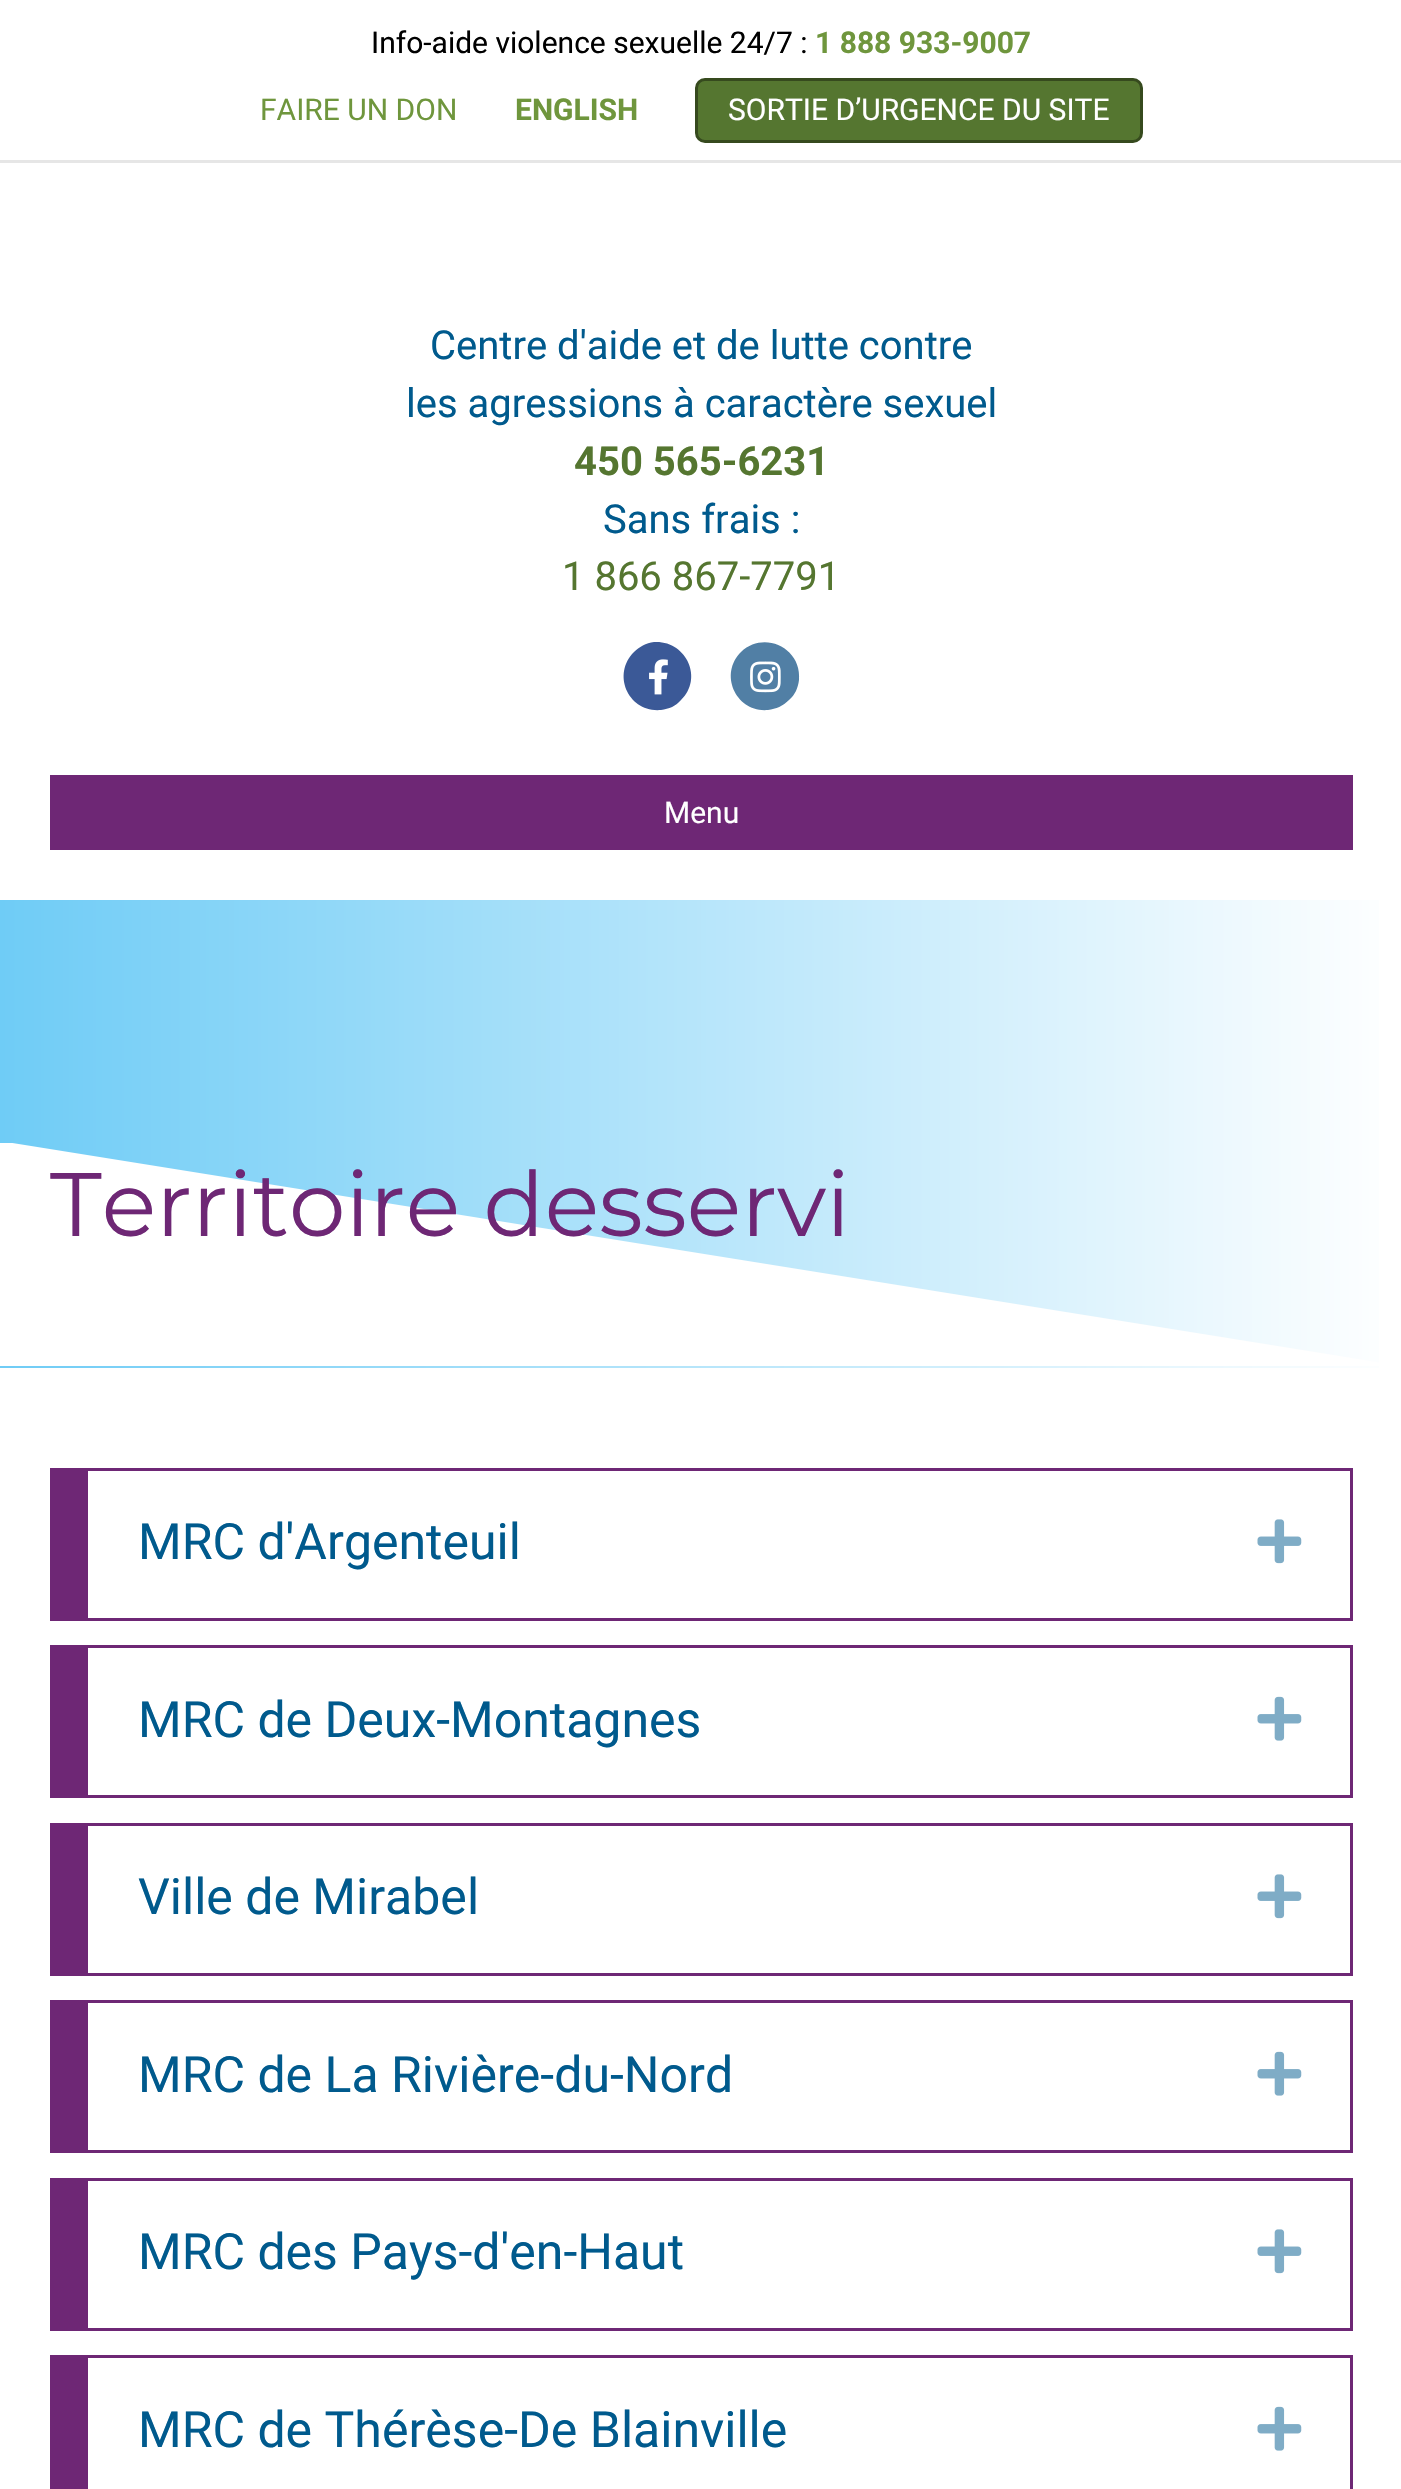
void draw(SkCanvas* c) {
SkPaint p;
p.setAntiAlias(true);
auto F=[&](const char* family, int weight, float size, bool italic = false){SkFontStyle style(weight, SkFontStyle::kNormal_Width,italic ? SkFontStyle::kItalic_Slant : SkFontStyle::kUpright_Slant);SkFont result(fontMgr->matchFamilyStyle(family, style), size);result.setSubpixel(true);return result;};
auto T=[&](const char* s, float x, float y, const SkFont& font){c->drawString(s, x, y, font, p);};
auto R=[&](float x, float y, float w, float h){c->drawRect(SkRect::MakeXYWH(x, y, w, h), p);};
auto I=[&](const char* path, float x, float y, float w, float h){auto image = SkImages::DeferredFromEncodedData(SkData::MakeFromFileName(path));c->drawImageRect(image, SkRect::MakeXYWH(x, y, w, h), SkSamplingOptions());};
auto P=[&](const char* data, bool evenOdd = false){SkPath result = *SkParsePath::FromSVGString(data);if (evenOdd) result.setFillType(SkPathFillType::kEvenOdd);return result;};
c->clear(0xffffffff);
p.setColor(0xffe6e6e6);
R(0,160,1401,3);
auto f1 = F("Roboto",400,30);
p.setColor(0xff000000);
T("Info-aide violence sexuelle 24/7 :",371,53,f1);
auto f2 = F("Roboto",700,30);
p.setColor(0xff6f963d);
T("1 888 933-9007",815,53,f2);
T("FAIRE UN DON",260,120,f1);
T("ENGLISH",515,120,f2);
p.setColor(0xff557630);
c->drawRoundRect(SkRect::MakeXYWH(696.5,79.5,445,62),8.5,8.5,p);
p.setStroke(true);
p.setStrokeWidth(3);
p.setColor(0xff364a1e);
c->drawRoundRect(SkRect::MakeXYWH(696.5,79.5,445,62),8.5,8.5,p);
p.setStroke(false);
p.setColor(0xffffffff);
T("SORTIE D’URGENCE DU SITE",728,120,f1);
auto f3 = F("Roboto",400,40);
p.setColor(0xff005a8d);
T("Centre d'aide et de lutte contre",430,359,f3);
T("les agressions à caractère sexuel",406,417,f3);
auto f4 = F("Roboto",700,40);
p.setColor(0xff557630);
T("450 565-6231",574,475,f4);
p.setColor(0xff005a8d);
T("Sans frais :",603,533,f3);
p.setColor(0xff557630);
T("1 866 867-7791",562,590,f3);
p.setColor(0xff3b5997);
c->drawPath(P("M634 652c5-5 12-9 20-10c32-2 50 36 27 58c-5 6-12 9-20 10c-32 3-50-35-27-58z"),p);
I("1.png",649,659,19,36);
p.setColor(0xff517fa5);
c->drawPath(P("M741 652c23-22 61-4 58 28c-1 8-4 15-10 20c-6 6-13 9-21 10c-31 3-50-35-27-58z"),p);
I("2.png",750,661,31,32);
p.setColor(0xff6e2775);
R(50,775,1303,75);
p.setColor(0xffffffff);
T("Menu",664,823,f1);
{
const SkColor colors[] = {0xff6fccf6,0xffffffff};
const float stops[] = {0,1};
const SkPoint ends[] = {{0,1134}, {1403,1134}};
p.setShader(SkGradientShader::MakeLinear(ends, colors, stops, 2, SkTileMode::kClamp));
p.setAlpha(255);
}
R(0,900,1379,468);
c->save();
c->clipRect(SkRect::MakeXYWH(0,1143,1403,225));
p.setShader(nullptr);
p.setColor(0xffffffff);
c->drawPath(P("M0 1141l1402 225h-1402z"),p);
c->restore();
auto f5 = F("Montserrat",100,90);
p.setColor(0xff6e2775);
T("Territoire desservi",50,1236,f5);
R(88,1468,1265,3);
R(1350,1468,3,152);
R(50,1618,1303,3);
R(50,1468,38,150);
auto f6 = F("Roboto",400,50);
p.setColor(0xff005a8d);
T("MRC d'Argenteuil",138,1559,f6);
I("3.png",1257,1519,45,45);
p.setColor(0xff6e2775);
R(88,1645,1265,3);
R(1350,1645,3,153);
R(88,1795,1265,3);
R(50,1645,38,153);
p.setColor(0xff005a8d);
T("MRC de Deux-Montagnes",138,1737,f6);
I("4.png",1257,1696,45,45);
p.setColor(0xff6e2775);
R(88,1823,1265,3);
R(1350,1823,3,152);
R(50,1973,1303,3);
R(50,1823,38,150);
p.setColor(0xff005a8d);
T("Ville de Mirabel",138,1914,f6);
I("3.png",1257,1874,45,45);
p.setColor(0xff6e2775);
R(88,2000,1265,3);
R(1350,2000,3,153);
R(88,2150,1265,3);
R(50,2000,38,153);
p.setColor(0xff005a8d);
T("MRC de La Rivière-du-Nord",138,2092,f6);
I("4.png",1257,2051,45,45);
p.setColor(0xff6e2775);
R(88,2178,1265,3);
R(1350,2178,3,152);
R(50,2328,1303,3);
R(50,2178,38,150);
p.setColor(0xff005a8d);
T("MRC des Pays-d'en-Haut",138,2269,f6);
I("3.png",1257,2229,45,45);
p.setColor(0xff6e2775);
R(88,2355,1265,3);
R(1350,2355,3,134);
R(50,2355,38,134);
p.setColor(0xff005a8d);
T("MRC de Thérèse-De Blainville",138,2447,f6);
I("4.png",1257,2406,45,45);
}
